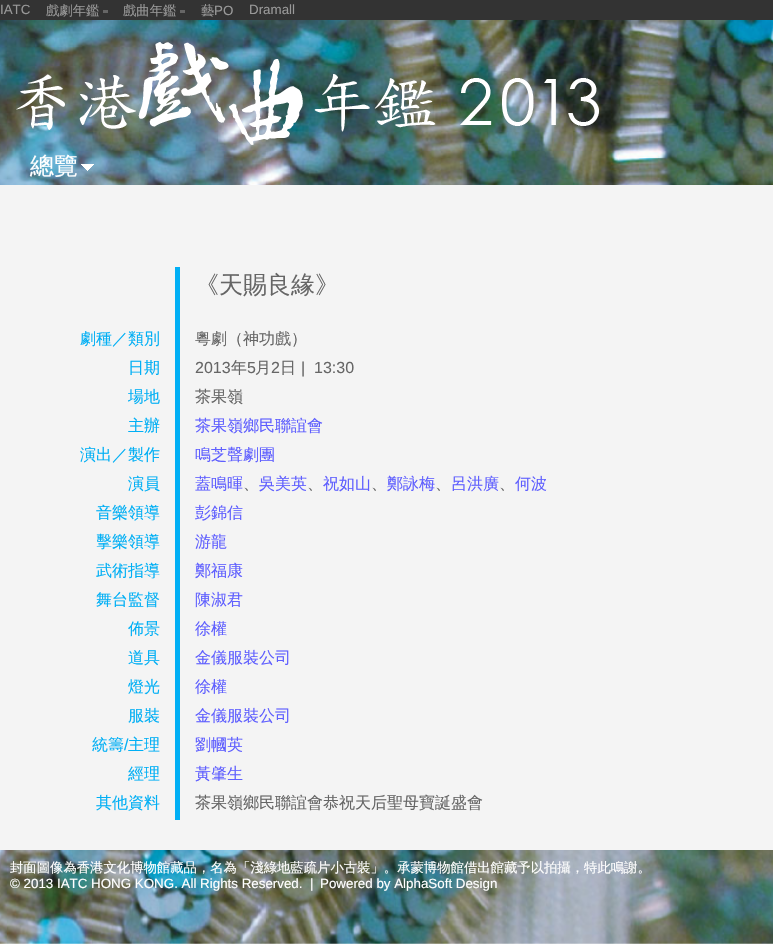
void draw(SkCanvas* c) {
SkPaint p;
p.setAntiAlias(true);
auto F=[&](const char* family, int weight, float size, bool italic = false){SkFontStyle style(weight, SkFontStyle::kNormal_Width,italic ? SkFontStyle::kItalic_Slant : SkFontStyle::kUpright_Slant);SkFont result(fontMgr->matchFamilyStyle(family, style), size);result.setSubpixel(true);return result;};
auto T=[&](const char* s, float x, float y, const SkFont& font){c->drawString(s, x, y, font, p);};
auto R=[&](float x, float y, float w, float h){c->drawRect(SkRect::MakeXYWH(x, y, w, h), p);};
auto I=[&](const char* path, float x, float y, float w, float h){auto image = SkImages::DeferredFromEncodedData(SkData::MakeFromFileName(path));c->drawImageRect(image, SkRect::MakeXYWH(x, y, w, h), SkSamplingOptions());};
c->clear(0xffffffff);
p.setColor(0xff333333);
R(0,0,773,20);
auto f1 = F("Liberation Sans",400,13.35);
p.setColor(0xff999999);
T("IATC",0,14,f1);
auto f2 = F("WenQuanYi Zen Hei",500,13.35);
T("戲劇年鑑",46,15,f2);
p.setColor(0xff666666);
R(103,10,5,3);
p.setColor(0xff999999);
T("戲曲年鑑",123,15,f2);
p.setColor(0xff666666);
R(180,10,5,3);
p.setColor(0xff999999);
T("藝",201,15,f2);
T("PO",214,15,f1);
T("Dramall",249,14,f1);
I("1.png",0,20,773,924);
I("2.png",16,42,583,103);
auto f3 = F("WenQuanYi Zen Hei",500,24);
p.setColor(0xffffffff);
T("總覽",30,174,f3);
I("3.png",81,164,13,7);
p.setColor(0xfff4f4f4);
R(0,185,773,665);
p.setColor(0xff00aff5);
R(175,267,5,553);
p.setColor(0xff666666);
T("《天賜良緣》",195,293,f3);
auto f4 = F("WenQuanYi Zen Hei",500,16);
p.setColor(0xff00aff5);
T("劇種／類別",80,344,f4);
p.setColor(0xff666666);
T("粵劇（神功戲）",195,344,f4);
p.setColor(0xff00aff5);
T("日期",128,373,f4);
auto f5 = F("Liberation Sans",400,16);
p.setColor(0xff666666);
T("2013",195,373,f5);
T("年",231,373,f4);
T("5",247,373,f5);
T("月",255,373,f4);
T("2",271,373,f5);
T("日",280,373,f4);
T("|  13:30",301,373,f5);
p.setColor(0xff00aff5);
T("場地",128,402,f4);
p.setColor(0xff666666);
T("茶果嶺",195,402,f4);
p.setColor(0xff00aff5);
T("主辦",128,431,f4);
p.setColor(0xff5f5fff);
T("茶果嶺鄉民聯誼會",195,431,f4);
p.setColor(0xff00aff5);
T("演出／製作",80,460,f4);
p.setColor(0xff5f5fff);
T("鳴芝聲劇團",195,460,f4);
p.setColor(0xff00aff5);
T("演員",128,489,f4);
p.setColor(0xff5f5fff);
T("蓋鳴暉",195,489,f4);
p.setColor(0xff666666);
T("、",243,489,f4);
p.setColor(0xff5f5fff);
T("吳美英",259,489,f4);
p.setColor(0xff666666);
T("、",307,489,f4);
p.setColor(0xff5f5fff);
T("祝如山",323,489,f4);
p.setColor(0xff666666);
T("、",371,489,f4);
p.setColor(0xff5f5fff);
T("鄭詠梅",387,489,f4);
p.setColor(0xff666666);
T("、",435,489,f4);
p.setColor(0xff5f5fff);
T("呂洪廣",451,489,f4);
p.setColor(0xff666666);
T("、",499,489,f4);
p.setColor(0xff5f5fff);
T("何波",515,489,f4);
p.setColor(0xff00aff5);
T("音樂領導",96,518,f4);
p.setColor(0xff5f5fff);
T("彭錦信",195,518,f4);
p.setColor(0xff00aff5);
T("擊樂領導",96,547,f4);
p.setColor(0xff5f5fff);
T("游龍",195,547,f4);
p.setColor(0xff00aff5);
T("武術指導",96,576,f4);
p.setColor(0xff5f5fff);
T("鄭福康",195,576,f4);
p.setColor(0xff00aff5);
T("舞台監督",96,605,f4);
p.setColor(0xff5f5fff);
T("陳淑君",195,605,f4);
p.setColor(0xff00aff5);
T("佈景",128,634,f4);
p.setColor(0xff5f5fff);
T("徐權",195,634,f4);
p.setColor(0xff00aff5);
T("道具",128,663,f4);
p.setColor(0xff5f5fff);
T("金儀服裝公司",195,663,f4);
p.setColor(0xff00aff5);
T("燈光",128,692,f4);
p.setColor(0xff5f5fff);
T("徐權",195,692,f4);
p.setColor(0xff00aff5);
T("服裝",128,721,f4);
p.setColor(0xff5f5fff);
T("金儀服裝公司",195,721,f4);
p.setColor(0xff00aff5);
T("統籌",92,750,f4);
T("/",124,750,f5);
T("主理",128,750,f4);
p.setColor(0xff5f5fff);
T("劉幗英",195,750,f4);
p.setColor(0xff00aff5);
T("經理",128,779,f4);
p.setColor(0xff5f5fff);
T("黃肇生",195,779,f4);
p.setColor(0xff00aff5);
T("其他資料",96,808,f4);
p.setColor(0xff666666);
T("茶果嶺鄉民聯誼會恭祝天后聖母寶誕盛會",195,808,f4);
p.setColor(0xffffffff);
T("封面圖像為香港文化博物館藏品，名為「淺綠地藍疏片小古裝」。承蒙博物館借出館藏予以拍攝，特此鳴謝。",10,872,f2);
T("© 2013 IATC HONG KONG. All Rights Reserved.  |",10,888,f1);
T("Powered by AlphaSoft Design",320,888,f1);
}
